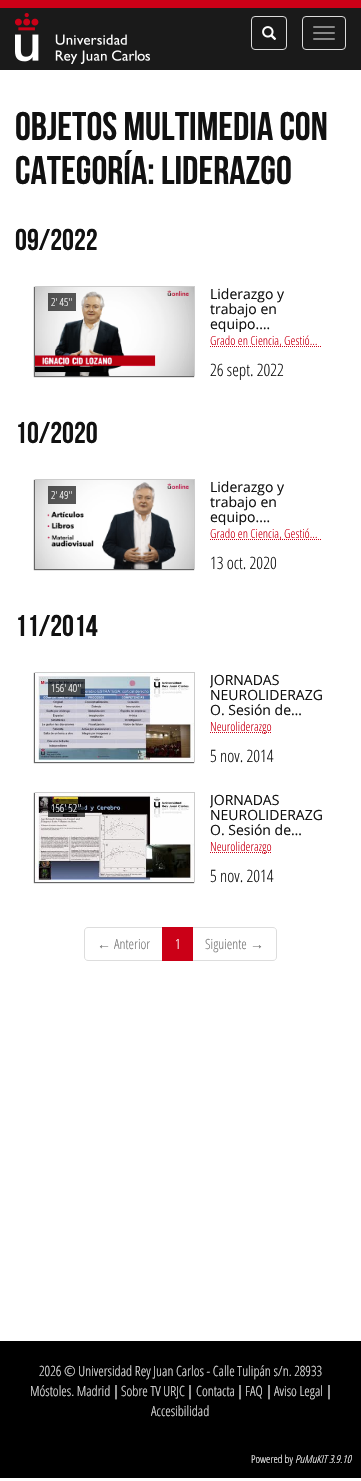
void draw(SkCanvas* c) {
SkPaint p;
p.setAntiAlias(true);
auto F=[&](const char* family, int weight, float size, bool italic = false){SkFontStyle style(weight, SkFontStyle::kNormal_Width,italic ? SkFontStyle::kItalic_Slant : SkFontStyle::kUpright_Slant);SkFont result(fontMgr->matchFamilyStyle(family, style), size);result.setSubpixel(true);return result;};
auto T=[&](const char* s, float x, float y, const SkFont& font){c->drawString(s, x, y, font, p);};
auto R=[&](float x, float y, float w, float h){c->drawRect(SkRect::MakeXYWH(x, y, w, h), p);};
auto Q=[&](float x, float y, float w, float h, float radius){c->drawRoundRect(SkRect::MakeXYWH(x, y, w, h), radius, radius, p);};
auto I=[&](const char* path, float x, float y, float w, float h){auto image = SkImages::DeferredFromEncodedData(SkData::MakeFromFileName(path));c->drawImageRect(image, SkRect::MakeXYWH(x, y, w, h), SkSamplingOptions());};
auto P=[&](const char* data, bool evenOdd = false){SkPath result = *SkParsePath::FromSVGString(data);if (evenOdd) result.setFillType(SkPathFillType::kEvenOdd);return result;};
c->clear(0xffffffff);
p.setColor(0xff1a1a1a);
R(0,8,361,62);
p.setColor(0xffcb0017);
R(0,0,361,8);
I("1.png",15,13,135,51);
p.setStroke(true);
p.setStrokeWidth(1);
p.setColor(0xffdddddd);
c->drawRoundRect(SkRect::MakeXYWH(251.5,16.5,35,33),3.5,3.5,p);
I("2.png",262,26,15,14);
c->drawRoundRect(SkRect::MakeXYWH(302.5,16.5,43,33),3.5,3.5,p);
p.setStroke(false);
p.setColor(0xff888888);
Q(313,26,22,2,1);
Q(313,32,22,2,1);
Q(313,38,22,2,1);
auto f1 = F("Bebas Neue",400,40);
p.setColor(0xff111111);
T("OBJETOS MULTIMEDIA CON",15,140,f1);
T("CATEGORÍA: LIDERAZGO",15,184,f1);
auto f2 = F("Bebas Neue",400,30);
T("09/2022",15,250,f2);
p.setColor(0xff666666);
p.setMaskFilter(SkMaskFilter::MakeBlur(kNormal_SkBlurStyle, .5));
c->drawRect(SkRect::MakeXYWH(34,287,160,90),p);
p.setMaskFilter(nullptr);
p.setColor(0xffcccccc);
R(35,286,160,1);
R(194,286,1,90);
I("3.png",35,287,159,89);
p.setColor(0xa6000000);
R(48,293,28,18);
auto f3 = F("Open Sans",300,11);
p.setColor(0xffffffff);
T("2' 45''",51,306,f3);
auto f4 = F("Open Sans",400,14);
p.setColor(0xff111111);
T("Liderazgo y",210,299,f4);
T("trabajo en",210,314,f4);
c->save();
c->clipRect(SkRect::MakeXYWH(210,286,116,46));
T("equipo.…",210,329,f4);
c->restore();
c->save();
c->clipRect(SkRect::MakeXYWH(210,332,111,18));
p.setStroke(true);
p.setColor(0xffcb0017);
p.setPathEffect(SkDashPathEffect::Make({{1,1}}, 0));
c->drawPath(P("M210 346.5h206.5"),p);
p.setPathEffect(nullptr);
c->restore();
auto f5 = F("Open Sans",300,12.5);
p.setStroke(false);
T("Grado en Ciencia, Gestió…",210,345,f5);
auto f6 = F("Open Sans",300,17);
p.setColor(0xff111111);
T("26 sept. 2022",210,376,f6);
T("10/2020",15,443,f2);
p.setColor(0xff666666);
p.setMaskFilter(SkMaskFilter::MakeBlur(kNormal_SkBlurStyle, .5));
c->drawRect(SkRect::MakeXYWH(34,480,160,90),p);
p.setMaskFilter(nullptr);
p.setColor(0xffcccccc);
R(35,479,160,1);
R(194,479,1,90);
I("4.png",35,480,159,89);
p.setColor(0xa6000000);
R(48,486,28,18);
p.setColor(0xffffffff);
T("2' 49''",51,499,f3);
p.setColor(0xff111111);
T("Liderazgo y",210,492,f4);
T("trabajo en",210,507,f4);
c->save();
c->clipRect(SkRect::MakeXYWH(210,479,116,46));
T("equipo.…",210,522,f4);
c->restore();
c->save();
c->clipRect(SkRect::MakeXYWH(210,525,111,18));
p.setStroke(true);
p.setColor(0xffcb0017);
p.setPathEffect(SkDashPathEffect::Make({{1,1}}, 0));
c->drawPath(P("M210 539.5h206.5"),p);
p.setPathEffect(nullptr);
c->restore();
p.setStroke(false);
T("Grado en Ciencia, Gestió…",210,538,f5);
p.setColor(0xff111111);
T("13 oct. 2020",210,569,f6);
T("11/2014",15,636,f2);
p.setColor(0xff666666);
p.setMaskFilter(SkMaskFilter::MakeBlur(kNormal_SkBlurStyle, .5));
c->drawRect(SkRect::MakeXYWH(34,673,160,90),p);
p.setMaskFilter(nullptr);
p.setColor(0xffcccccc);
R(35,672,160,1);
R(194,672,1,90);
I("5.png",35,673,159,89);
p.setColor(0xa6000000);
R(48,679,37,18);
p.setColor(0xffffffff);
T("156' 40''",51,692,f3);
c->save();
c->clipRect(SkRect::MakeXYWH(210,672,116,46));
p.setColor(0xff111111);
T("JORNADAS",210,685,f4);
c->restore();
T("NEUROLIDERAZG",210,700,f4);
T("O. Sesión de…",210,715,f4);
p.setStroke(true);
p.setColor(0xffcb0017);
p.setPathEffect(SkDashPathEffect::Make({{1,1}}, 0));
c->drawPath(P("M210 732.5h62"),p);
p.setPathEffect(nullptr);
p.setStroke(false);
T("Neuroliderazgo",210,731,f5);
p.setColor(0xff111111);
T("5 nov. 2014",210,762,f6);
p.setColor(0xff666666);
p.setMaskFilter(SkMaskFilter::MakeBlur(kNormal_SkBlurStyle, .5));
c->drawRect(SkRect::MakeXYWH(34,793,160,90),p);
p.setMaskFilter(nullptr);
p.setColor(0xffcccccc);
R(35,792,160,1);
R(194,792,1,90);
I("6.png",35,793,159,89);
p.setColor(0xa6000000);
R(48,799,37,18);
p.setColor(0xffffffff);
T("156' 52''",51,812,f3);
c->save();
c->clipRect(SkRect::MakeXYWH(210,792,116,46));
p.setColor(0xff111111);
T("JORNADAS",210,805,f4);
c->restore();
T("NEUROLIDERAZG",210,820,f4);
T("O. Sesión de…",210,835,f4);
p.setStroke(true);
p.setColor(0xffcb0017);
p.setPathEffect(SkDashPathEffect::Make({{1,1}}, 0));
c->drawPath(P("M210 852.5h62"),p);
p.setPathEffect(nullptr);
p.setStroke(false);
T("Neuroliderazgo",210,851,f5);
p.setColor(0xff111111);
T("5 nov. 2014",210,882,f6);
p.setStroke(true);
p.setColor(0xffdddddd);
c->drawPath(P("M88 927.5h74.5v33h-74.5c-2 0-3.5-1.5-3.5-3.5v-26c0-2 1.5-3.5 3.5-3.5z"),p);
auto f7 = F("Liberation Serif",400,14);
p.setStroke(false);
p.setColor(0xff767676);
T("←",97,949,f7);
auto f8 = F("Open Sans",300,14);
T("Anterior",114,949,f8);
p.setStroke(true);
p.setColor(0xffdddddd);
c->drawPath(P("M192.5 927.5h80.5c2 0 3.5 1.5 3.5 3.5v26c0 2-1.5 3.5-3.5 3.5h-80.5z"),p);
p.setStroke(false);
p.setColor(0xffcb0017);
R(162,927,31,34);
p.setColor(0xffffffff);
T("1",175,949,f8);
p.setColor(0xff767676);
T("Siguiente",205,949,f8);
T("→",250,949,f7);
p.setColor(0xff000000);
R(0,1341,361,137);
p.setColor(0xffe1e1e1);
T("2026 © Universidad Rey Juan Carlos - Calle Tulipán s/n. 28933",39,1376,f8);
T("Móstoles. Madrid",30,1396,f8);
auto f9 = F("Open Sans",700,14);
T("|",113,1396,f9);
T("Sobre TV URJC",121,1396,f8);
T("|",187,1396,f9);
T("Contacta",196,1396,f8);
T("|",237,1396,f9);
T("FAQ",245,1396,f8);
T("|",266,1396,f9);
T("Aviso Legal",274,1396,f8);
T("|",326,1396,f9);
T("Accesibilidad",151,1416,f8);
p.setColor(0xffffffff);
T("Powered by",251,1463,f3);
auto f10 = F("Open Sans",300,11,true);
T("PuMuKIT 3.9.10",295,1463,f10);
}
